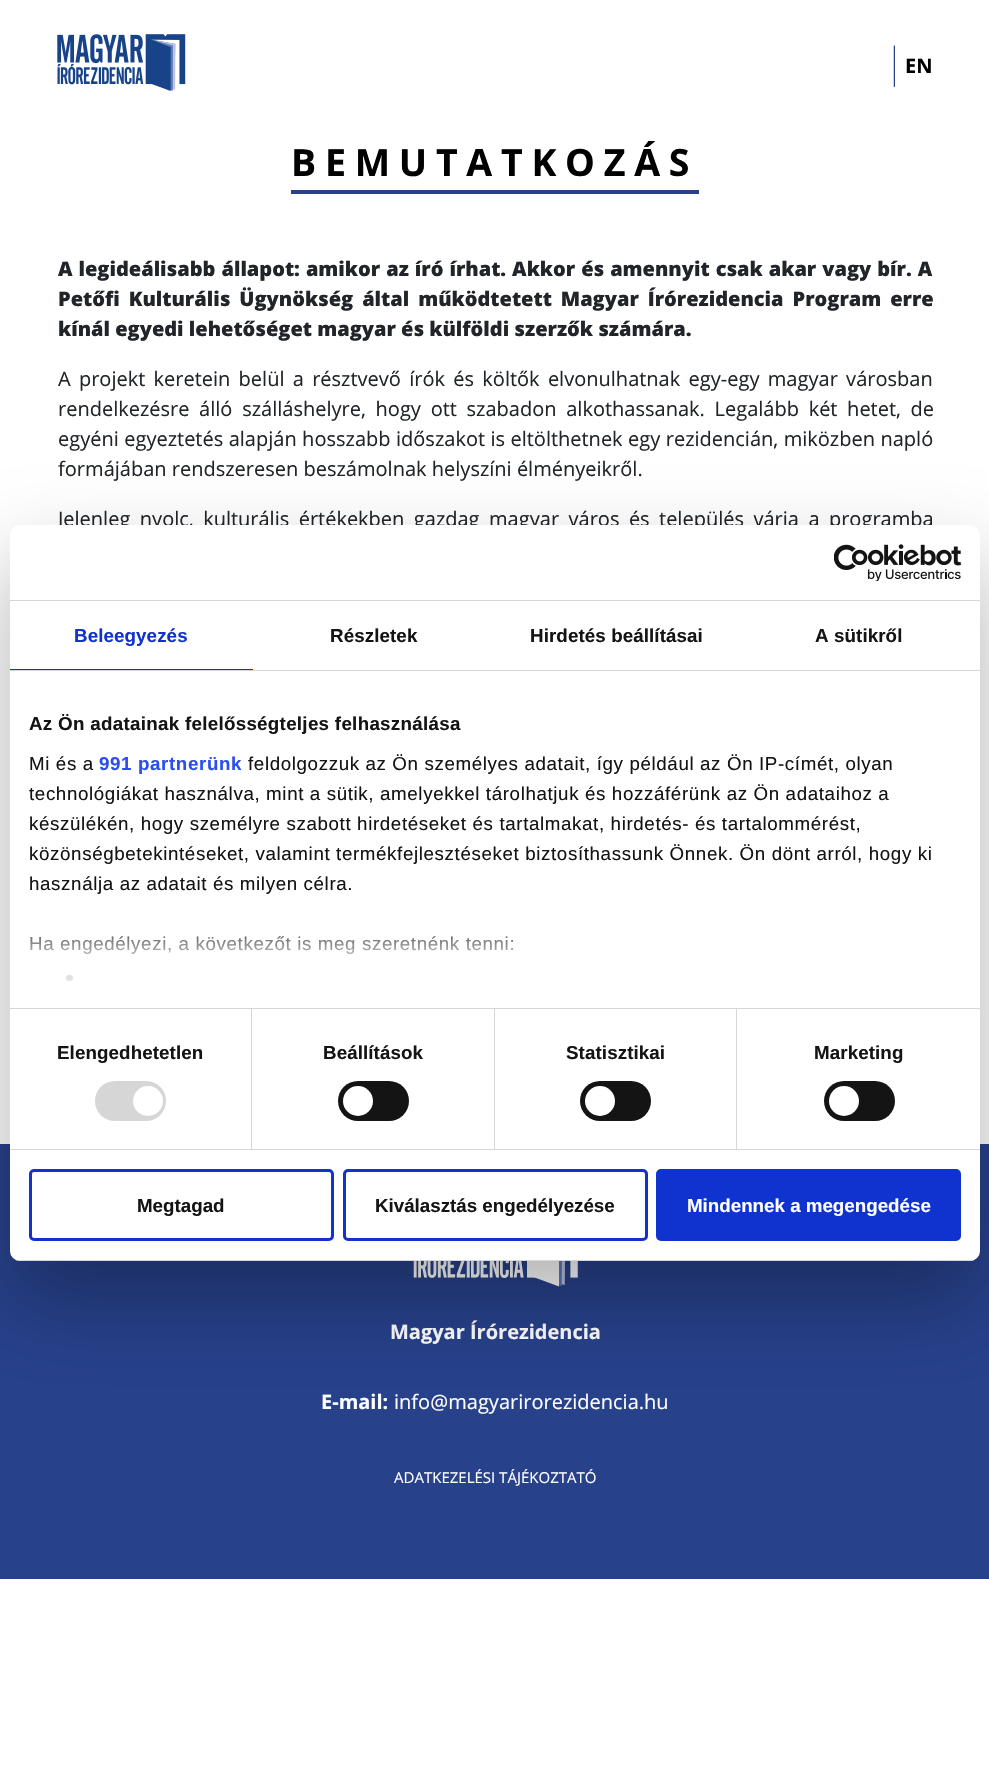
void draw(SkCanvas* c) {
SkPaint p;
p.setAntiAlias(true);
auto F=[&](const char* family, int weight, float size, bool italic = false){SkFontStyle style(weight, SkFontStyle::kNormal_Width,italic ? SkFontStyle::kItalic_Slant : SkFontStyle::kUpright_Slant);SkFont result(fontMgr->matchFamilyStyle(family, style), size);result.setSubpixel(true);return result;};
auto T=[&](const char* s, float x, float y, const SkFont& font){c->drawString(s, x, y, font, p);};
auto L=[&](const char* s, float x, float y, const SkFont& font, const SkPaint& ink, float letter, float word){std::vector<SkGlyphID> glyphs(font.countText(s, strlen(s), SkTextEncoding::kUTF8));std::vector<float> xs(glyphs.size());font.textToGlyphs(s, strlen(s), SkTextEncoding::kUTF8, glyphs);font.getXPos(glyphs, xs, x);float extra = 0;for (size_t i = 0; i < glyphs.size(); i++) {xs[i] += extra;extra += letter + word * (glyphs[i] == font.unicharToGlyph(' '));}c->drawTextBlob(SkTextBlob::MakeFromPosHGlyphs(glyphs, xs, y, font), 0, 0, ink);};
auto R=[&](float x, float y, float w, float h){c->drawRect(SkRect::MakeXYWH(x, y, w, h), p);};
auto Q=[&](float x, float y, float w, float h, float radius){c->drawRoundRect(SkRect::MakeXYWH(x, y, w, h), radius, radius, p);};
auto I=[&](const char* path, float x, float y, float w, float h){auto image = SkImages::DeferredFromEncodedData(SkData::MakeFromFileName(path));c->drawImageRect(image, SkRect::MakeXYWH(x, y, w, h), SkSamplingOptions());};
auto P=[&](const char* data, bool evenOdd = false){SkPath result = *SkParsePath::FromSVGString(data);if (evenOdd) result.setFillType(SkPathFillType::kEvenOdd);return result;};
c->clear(0xffffffff);
I("1.png",57,34,129,57);
I("2.png",893,45,2,42);
auto f1 = F("Open Sans",700,20);
p.setColor(0xff000000);
T("EN",905,73,f1);
p.setColor(0xff27418b);
R(291,190,408,4);
auto f2 = F("Open Sans",700,37.5);
p.setColor(0xff000000);
L("BEMUTATKOZÁS",291,176,f2,p,8.75,0);
auto f3 = F("Open Sans",800,20);
p.setColor(0xff212529);
L("A legideálisabb állapot: amikor az író írhat. Akkor és amennyit csak akar vagy bír. A",58,276,f3,p,0,.8);
L("Petőfi Kulturális Ügynökség által működtetett Magyar Írórezidencia Program erre",58,306,f3,p,0,3.75);
T("kínál egyedi lehetőséget magyar és külföldi szerzők számára.",58,336,f3);
auto f4 = F("Open Sans",400,20);
L("A projekt keretein belül a résztvevő írók és költők elvonulhatnak egy-egy magyar városban",58,386,f4,p,0,3.1);
L("rendelkezésre álló szálláshelyre, hogy ott szabadon alkothassanak. Legalább két hetet, de",58,416,f4,p,0,4.5);
L("egyéni egyeztetés alapján hosszabb időszakot is eltölthetnek egy rezidencián, miközben napló",58,446,f4,p,0,.25);
T("formájában rendszeresen beszámolnak helyszíni élményeikről.",58,476,f4);
L("Jelenleg nyolc, kulturális értékekben gazdag magyar város és település várja a programba",58,526,f4,p,0,4.25);
p.setColor(0xff27418b);
R(0,1144,989,435);
I("3.png",413,1261,165,26);
p.setColor(0xffffffff);
T("Magyar Írórezidencia",390,1339,f1);
T("E-mail:",321,1409,f1);
T("info@magyarirorezidencia.hu",394,1409,f4);
auto f5 = F("Open Sans",400,15);
T("ADATKEZELÉSI TÁJÉKOZTATÓ",394,1483,f5);
p.setColor(0x4d000000);
p.setMaskFilter(SkMaskFilter::MakeBlur(kNormal_SkBlurStyle, 42.5));
c->drawRoundRect(SkRect::MakeXYWH(10,565,970,736),10,10,p);
p.setMaskFilter(nullptr);
p.setColor(0xffffffff);
Q(10,525,970,736,10);
p.setColor(0xffd6d6d6);
R(10,600,970,1);
I("4.png",834,544,127,37);
R(10,670,970,1);
p.setColor(0xff1032cf);
R(10,669,243,1);
auto f6 = F("Liberation Sans",700,18.75);
L("Beleegyezés",74,642,f6,p,.1,0);
p.setColor(0xff141414);
L("Részletek",330,642,f6,p,.1,0);
L("Hirdetés beállításai",530,642,f6,p,.1,0);
L("A sütikről",815,642,f6,p,.1,0);
p.setColor(0xffd6d6d6);
R(10,1008,970,1);
p.setColor(0xff141414);
L("Az Ön adatainak felelősségteljes felhasználása",29,730,f6,p,.3,0);
auto f7 = F("Liberation Sans",400,18.75);
L("Mi és a",29,770,f7,p,.62,0);
p.setColor(0xff2a4eef);
L("991 partnerünk",99,770,f6,p,.62,0);
p.setColor(0xff141414);
L("feldolgozzuk az Ön személyes adatait, így például az Ön IP-címét, olyan",248,770,f7,p,.62,0);
L("technológiákat használva, mint a sütik, amelyekkel tárolhatjuk és hozzáférünk az Ön adataihoz a",29,800,f7,p,.62,0);
L("készülékén, hogy személyre szabott hirdetéseket és tartalmakat, hirdetés- és tartalommérést,",29,830,f7,p,.62,0);
L("közönségbetekintéseket, valamint termékfejlesztéseket biztosíthassunk Önnek. Ön dönt arról, hogy ki",29,860,f7,p,.62,0);
L("használja az adatait és milyen célra.",29,890,f7,p,.62,0);
L("Ha engedélyezi, a következőt is meg szeretnénk tenni:",29,950,f7,p,.62,0);
Q(66,975,7,6,3);
{
const SkColor colors[] = {0xffffffff,0xccffffff,0x00ffffff};
const float stops[] = {0,.5,1};
const SkPoint ends[] = {{487,1008}, {487,914}};
p.setShader(SkGradientShader::MakeLinear(ends, colors, stops, 3, SkTileMode::kClamp));
p.setAlpha(255);
}
R(30,936,483,45);
p.setShader(nullptr);
p.setColor(0xffd6d6d6);
R(10,1149,970,1);
R(251,1009,1,140);
p.setColor(0xff141414);
L("Elengedhetetlen",57,1059,f6,p,.1,0);
p.setColor(0xffd6d6d6);
Q(95,1081,71,40,20);
p.setColor(0xffffffff);
c->drawCircle(148,1101,15,p);
p.setColor(0xffd6d6d6);
R(494,1009,1,140);
p.setColor(0xff141414);
L("Beállítások",323,1059,f6,p,.1,0);
Q(338,1081,71,40,20);
p.setColor(0xffffffff);
c->drawCircle(358,1101,15,p);
p.setColor(0xffd6d6d6);
R(736,1009,1,140);
p.setColor(0xff141414);
L("Statisztikai",566,1059,f6,p,.1,0);
Q(580,1081,71,40,20);
p.setColor(0xffffffff);
c->drawCircle(600,1101,15,p);
p.setColor(0xff141414);
L("Marketing",814,1059,f6,p,.1,0);
Q(824,1081,71,40,20);
p.setColor(0xffffffff);
c->drawCircle(844,1101,15,p);
c->save();
c->clipPath(P("M20 525h950c5.5 0 10 4.5 10 10v716c0 5.5-4.5 10-10 10h-950c-5.5 0-10-4.5-10-10v-716c0-5.5 4.5-10 10-10z"),true);
p.setColor(0xffd6d6d6);
R(10,1260,970,1);
c->restore();
p.setStroke(true);
p.setStrokeWidth(3);
p.setColor(0xff1032cf);
c->drawRoundRect(SkRect::MakeXYWH(30.5,1170.5,302,69),3.5,3.5,p);
p.setStroke(false);
p.setColor(0xff141414);
T("Megtagad",137,1212,f6);
p.setStroke(true);
p.setColor(0xff1032cf);
c->drawRoundRect(SkRect::MakeXYWH(344.5,1170.5,302,69),3.5,3.5,p);
p.setStroke(false);
p.setColor(0xff141414);
T("Kiválasztás engedélyezése",375,1212,f6);
p.setColor(0xff1032cf);
c->drawRoundRect(SkRect::MakeXYWH(657.5,1170.5,302,69),3.5,3.5,p);
p.setStroke(true);
c->drawRoundRect(SkRect::MakeXYWH(657.5,1170.5,302,69),3.5,3.5,p);
p.setStroke(false);
p.setColor(0xffffffff);
T("Mindennek a megengedése",687,1212,f6);
}
